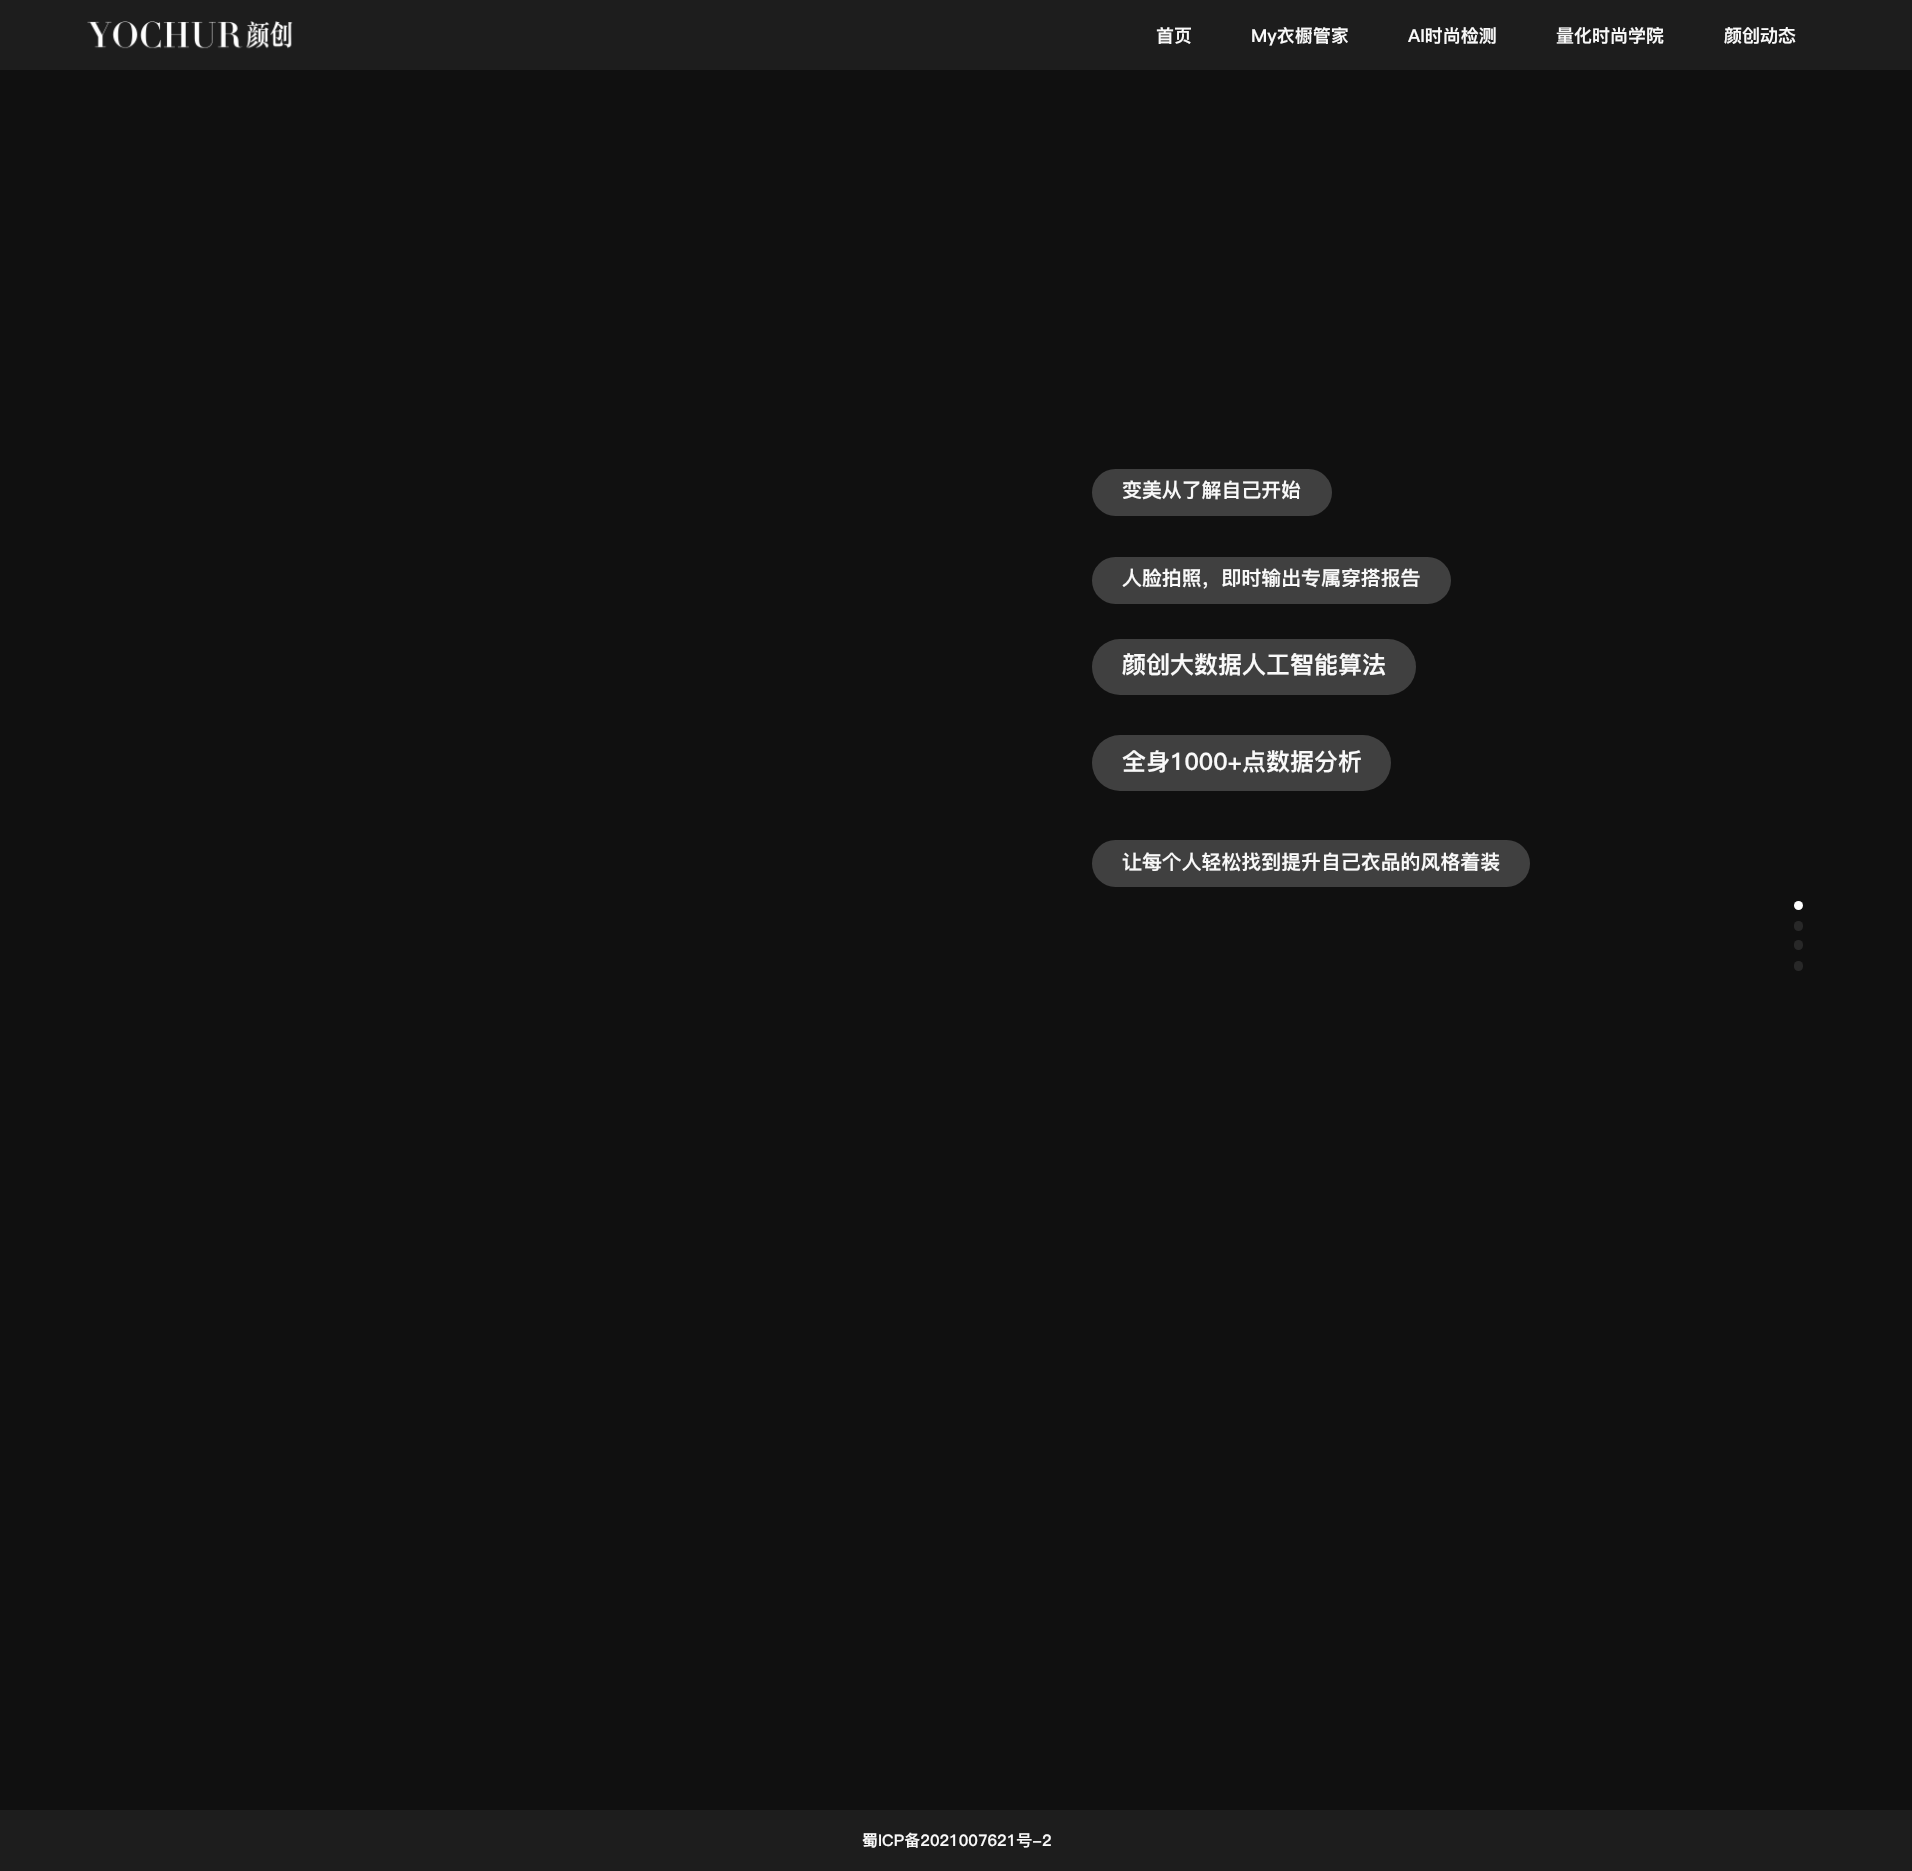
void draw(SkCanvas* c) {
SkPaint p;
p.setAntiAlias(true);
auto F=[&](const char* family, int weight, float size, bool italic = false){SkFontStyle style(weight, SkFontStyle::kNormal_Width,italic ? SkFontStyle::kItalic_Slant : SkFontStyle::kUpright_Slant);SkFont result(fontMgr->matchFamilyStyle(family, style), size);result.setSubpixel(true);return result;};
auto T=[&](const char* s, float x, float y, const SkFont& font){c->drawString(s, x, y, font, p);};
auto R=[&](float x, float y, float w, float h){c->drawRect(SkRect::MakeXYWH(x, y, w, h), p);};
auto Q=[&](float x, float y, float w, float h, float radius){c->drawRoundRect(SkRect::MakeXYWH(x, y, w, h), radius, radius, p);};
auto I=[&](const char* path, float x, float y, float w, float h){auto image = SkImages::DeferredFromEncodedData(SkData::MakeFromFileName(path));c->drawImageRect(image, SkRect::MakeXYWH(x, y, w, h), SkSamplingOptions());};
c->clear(0xff101010);
p.setColor(0xff1d1d1d);
R(0,0,1912,70);
I("1.png",87,21,206,28);
auto f1 = F("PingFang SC",600,18);
p.setColor(0xfff9f9f9);
T("首页",1156,42,f1);
T("My衣橱管家",1251,42,f1);
T("AI时尚检测",1408,42,f1);
T("量化时尚学院",1556,42,f1);
T("颜创动态",1724,42,f1);
p.setColor(0x33ffffff);
Q(1092,469,240,47,23.5);
auto f2 = F("PingFang SC",600,19.9);
p.setColor(0xfff9f9f9);
T("变美从了解自己开始",1122,497,f2);
p.setColor(0x33ffffff);
Q(1092,557,359,47,23.5);
p.setColor(0xfff9f9f9);
T("人脸拍照，即时输出专属穿搭报告",1122,585,f2);
p.setColor(0x33ffffff);
Q(1092,639,324,56,28);
auto f3 = F("PingFang SC",600,24);
p.setColor(0xfff9f9f9);
T("颜创大数据人工智能算法",1122,673,f3);
p.setColor(0x33ffffff);
Q(1092,735,299,56,28);
p.setColor(0xfff9f9f9);
T("全身1000+点数据分析",1122,770,f3);
p.setColor(0x33ffffff);
Q(1092,840,438,47,23.5);
p.setColor(0xfff9f9f9);
T("让每个人轻松找到提升自己衣品的风格着装",1122,869,f2);
p.setColor(0xffffffff);
c->drawCircle(1798.5,905.5,4.5,p);
p.setColor(0xff282828);
Q(1794,921,9,10,4.5);
Q(1794,940,9,10,4.5);
Q(1794,961,9,10,4.5);
p.setColor(0xff1d1d1d);
R(0,1810,1912,61);
auto f4 = F("PingFang SC",600,16);
p.setColor(0xfff9f9f9);
T("蜀ICP备2021007621号-2",862,1846,f4);
}
